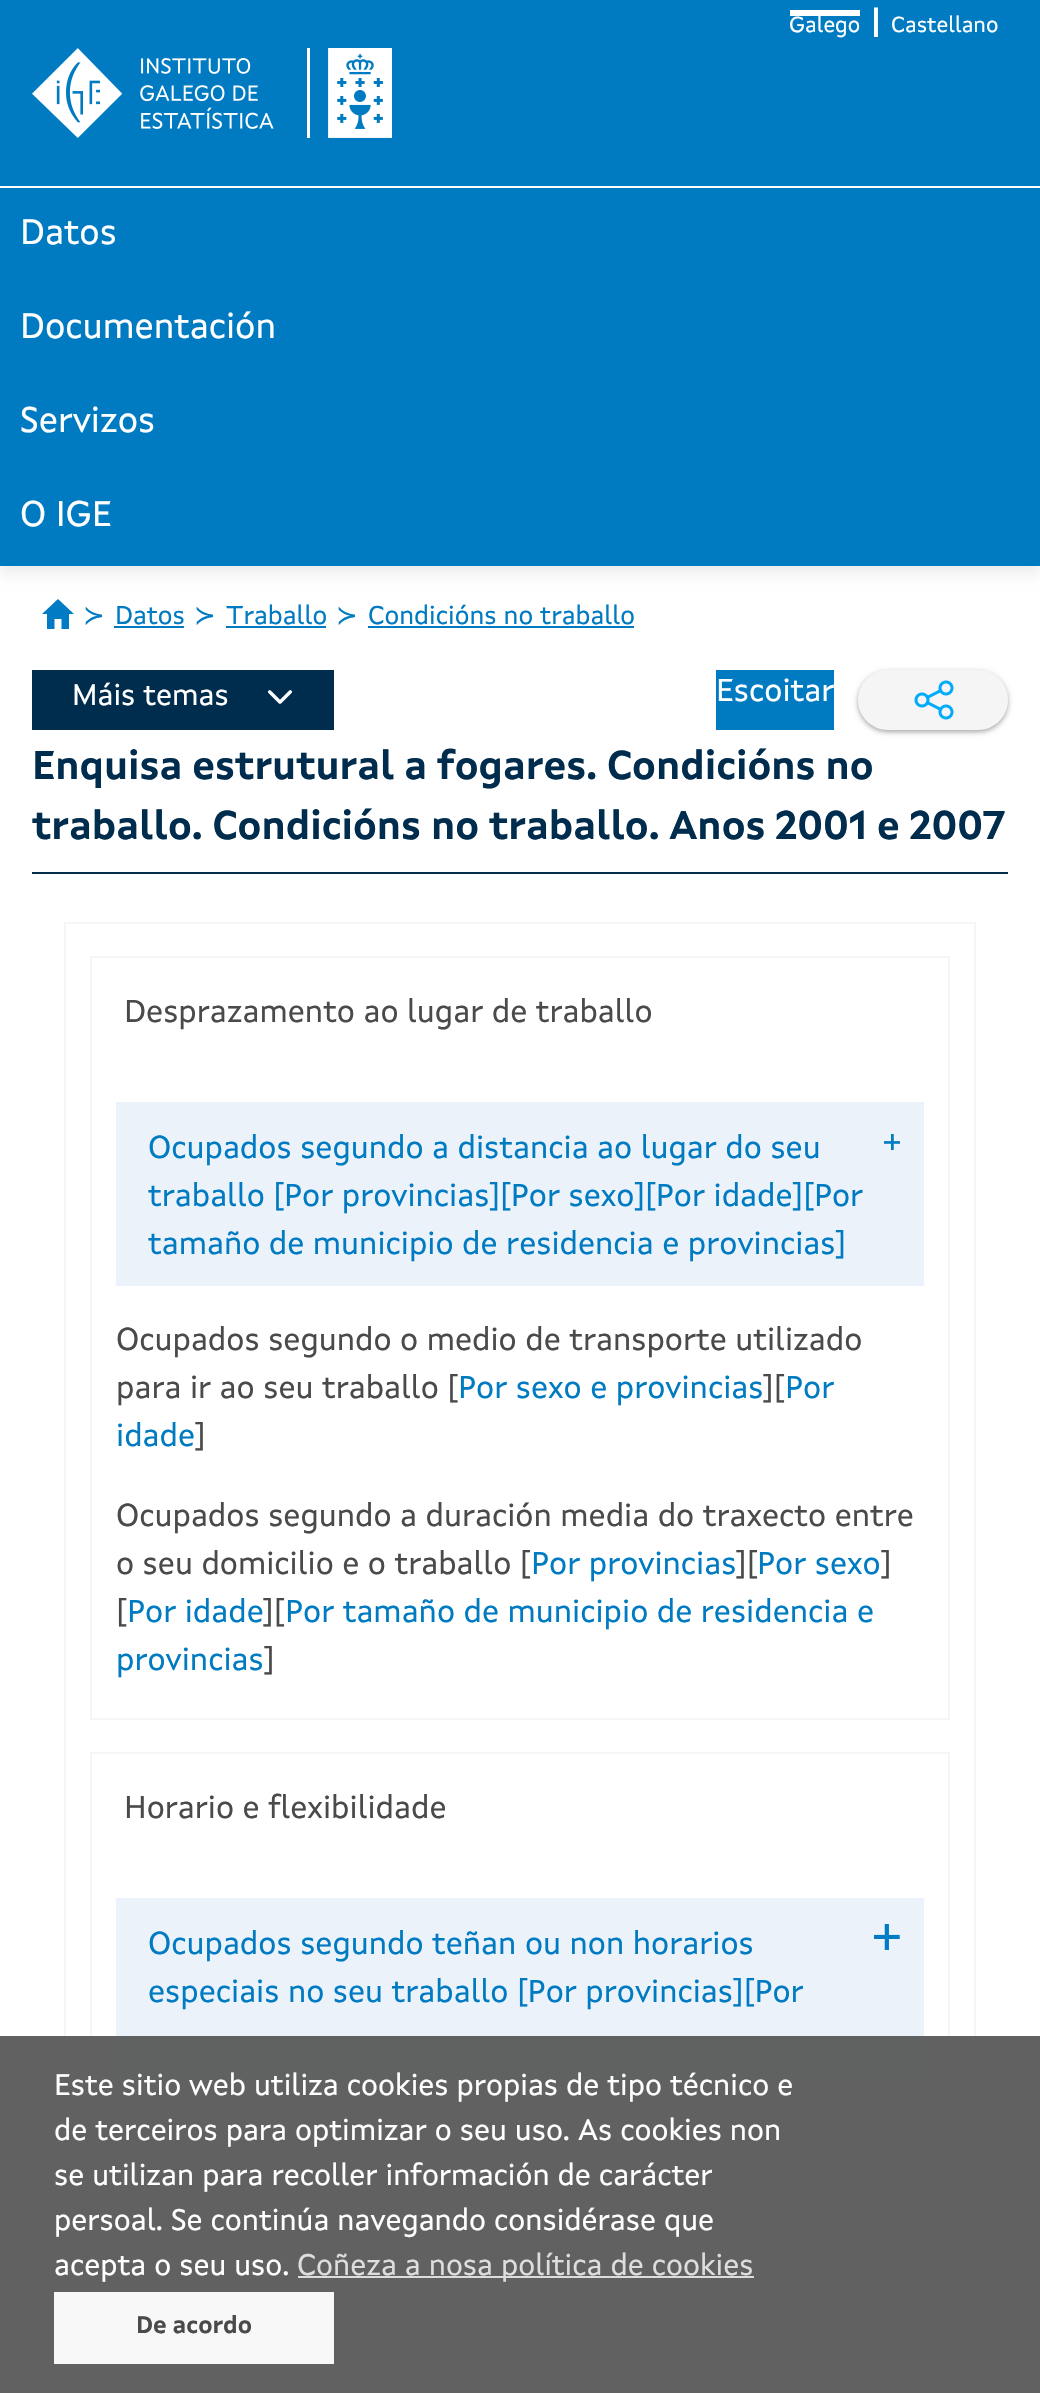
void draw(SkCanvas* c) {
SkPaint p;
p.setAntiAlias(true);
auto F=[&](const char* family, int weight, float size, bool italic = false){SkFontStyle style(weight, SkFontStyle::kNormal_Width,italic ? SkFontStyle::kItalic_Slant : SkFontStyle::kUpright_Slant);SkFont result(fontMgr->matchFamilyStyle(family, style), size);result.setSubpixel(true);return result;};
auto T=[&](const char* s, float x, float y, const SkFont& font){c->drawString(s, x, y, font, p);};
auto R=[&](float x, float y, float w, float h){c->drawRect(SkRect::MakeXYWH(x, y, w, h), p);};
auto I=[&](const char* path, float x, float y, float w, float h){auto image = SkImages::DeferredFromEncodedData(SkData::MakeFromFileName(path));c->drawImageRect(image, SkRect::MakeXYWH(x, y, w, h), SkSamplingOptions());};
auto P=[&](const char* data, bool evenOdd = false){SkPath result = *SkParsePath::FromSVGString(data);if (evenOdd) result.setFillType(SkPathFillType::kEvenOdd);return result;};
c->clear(0xffffffff);
p.setColor(0xff007bc2);
R(0,0,1040,186);
p.setColor(0xffffffff);
R(790,10,70,6);
auto f1 = F("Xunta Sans",400,22);
T("Galego",789,32,f1);
auto f2 = F("Xunta Sans",700,32);
T("|",871,32,f2);
T("Castellano",891,32,f1);
I("1.png",32,48,360,90);
p.setColor(0x12000000);
p.setMaskFilter(SkMaskFilter::MakeBlur(kNormal_SkBlurStyle, 6));
c->drawRect(SkRect::MakeXYWH(0,194,1040,380),p);
p.setMaskFilter(nullptr);
p.setColor(0xff007bc2);
R(0,188,1040,378);
auto f3 = F("Xunta Sans",400,36);
p.setColor(0xffffffff);
T("Datos",20,244,f3);
T("Documentación",20,338,f3);
T("Servizos",20,432,f3);
T("O IGE",20,526,f3);
p.setColor(0xff007bc4);
c->drawPath(P("M54.5 629v-10h7v10h7.5v-15h5l-16-15l-16 15h5v15z"),p);
auto f4 = F("DejaVu Sans",400,26);
p.setColor(0xff007bc2);
T("≻",83,624,f4);
auto f5 = F("Xunta Sans",400,26);
T("Datos",115,624,f5);
R(114,626,70,2);
T("≻",194,624,f4);
T("Traballo",226,624,f5);
R(226,626,100,2);
T("≻",336,624,f4);
T("Condicións no traballo",368,624,f5);
R(368,626,266,2);
p.setColor(0xff002d4d);
R(32,670,302,60);
auto f6 = F("Xunta Sans",400,30);
p.setColor(0xffffffff);
T("Máis temas",72,705,f6);
I("2.png",268,690,24,14);
p.setColor(0xff007bc2);
R(716,670,118,60);
auto f7 = F("Xunta Sans",400,32);
p.setColor(0xffffffff);
T("Escoitar",716,701,f7);
p.setColor(0x3d000000);
p.setMaskFilter(SkMaskFilter::MakeBlur(kNormal_SkBlurStyle, 2));
c->drawRoundRect(SkRect::MakeXYWH(858,672,150,60),30,30,p);
p.setMaskFilter(nullptr);
p.setColor(0x1f000000);
p.setMaskFilter(SkMaskFilter::MakeBlur(kNormal_SkBlurStyle, 3));
c->drawRoundRect(SkRect::MakeXYWH(858,672,150,60),30,30,p);
p.setMaskFilter(nullptr);
p.setColor(0xfff5f5f5);
c->drawPath(P("M888 670h46v60h-46c-16.5 0-30-13.5-30-30c0-16.5 13.5-30 30-30z"),p);
c->drawPath(P("M934 670h44c16.5 0 30 13.5 30 30c0 16.5-13.5 30-30 30h-44z"),p);
I("3.png",914,680,40,40);
auto f8 = F("Xunta Sans",700,40);
p.setColor(0xff002d4d);
T("Enquisa estrutural a fogares. Condicións no",32,779,f8);
T("traballo. Condicións no traballo. Anos 2001 e 2007",32,839,f8);
R(32,872,976,2);
p.setStroke(true);
p.setStrokeWidth(2);
p.setColor(0xfff5f5f5);
c->drawRect(SkRect::MakeXYWH(65,923,910,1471),p);
c->drawRect(SkRect::MakeXYWH(91,957,858,762),p);
p.setStroke(false);
p.setColor(0xff4a4a4a);
T("Desprazamento ao lugar de traballo",124,1022,f7);
p.setColor(0xffebf2fa);
R(116,1102,808,184);
p.setColor(0xff007bc2);
T("Ocupados segundo a distancia ao lugar do seu",148,1158,f7);
T("traballo [Por provincias][Por sexo][Por idade][Por",148,1206,f7);
T("tamaño de municipio de residencia e provincias]",148,1254,f7);
I("4.png",884,1134,16,16);
p.setColor(0xff4a4a4a);
T("Ocupados segundo o medio de transporte utilizado",116,1350,f7);
T("para ir ao seu traballo [",116,1398,f7);
p.setColor(0xff007bc2);
T("Por sexo e provincias",458,1398,f7);
p.setColor(0xff4a4a4a);
T("][",763,1398,f7);
p.setColor(0xff007bc2);
T("Por",785,1398,f7);
T("idade",116,1446,f7);
p.setColor(0xff4a4a4a);
T("]",195,1446,f7);
T("Ocupados segundo a duración media do traxecto entre",116,1526,f7);
T("o seu domicilio e o traballo [",116,1574,f7);
p.setColor(0xff007bc2);
T("Por provincias",531,1574,f7);
p.setColor(0xff4a4a4a);
T("][",736,1574,f7);
p.setColor(0xff007bc2);
T("Por sexo",757,1574,f7);
p.setColor(0xff4a4a4a);
T("]",881,1574,f7);
T("[",116,1622,f7);
p.setColor(0xff007bc2);
T("Por idade",127,1622,f7);
p.setColor(0xff4a4a4a);
T("][",263,1622,f7);
p.setColor(0xff007bc2);
T("Por tamaño de municipio de residencia e",285,1622,f7);
T("provincias",116,1670,f7);
p.setColor(0xff4a4a4a);
T("]",264,1670,f7);
p.setStroke(true);
p.setColor(0xfff5f5f5);
c->drawRect(SkRect::MakeXYWH(91,1753,858,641),p);
p.setStroke(false);
p.setColor(0xff4a4a4a);
T("Horario e flexibilidade",124,1818,f7);
p.setColor(0xffebf2fa);
R(116,1898,808,184);
p.setColor(0xff007bc2);
T("Ocupados segundo teñan ou non horarios",148,1954,f7);
T("especiais no seu traballo [Por provincias][Por",148,2002,f7);
I("5.png",874,1924,26,26);
p.setColor(0xf2585858);
R(0,2036,1040,357);
p.setColor(0xffffffff);
T("Este sitio web utiliza cookies propias de tipo técnico e",54,2095,f6);
T("de terceiros para optimizar o seu uso. As cookies non",54,2140,f6);
T("se utilizan para recoller información de carácter",54,2185,f6);
T("persoal. Se continúa navegando considérase que",54,2230,f6);
T("acepta o seu uso.",54,2275,f6);
p.setColor(0xffdddddd);
R(298,2276,456,2);
T("Coñeza a nosa política de cookies",297,2275,f6);
p.setColor(0xfff8f8f8);
R(54,2292,280,72);
auto f9 = F("Xunta Sans",700,24);
p.setColor(0xff4a4a4a);
T("De acordo",136,2333,f9);
}
